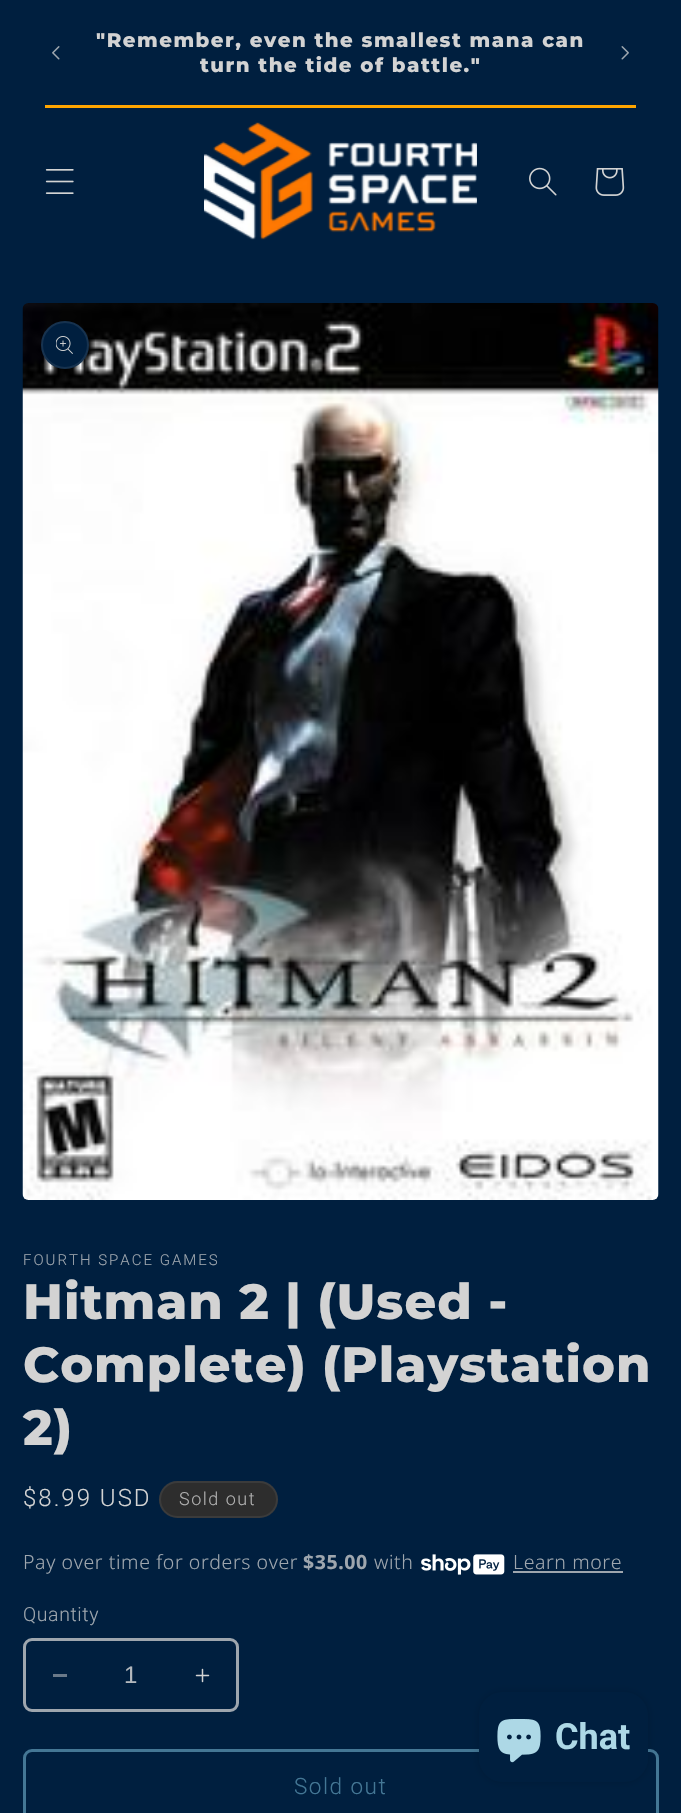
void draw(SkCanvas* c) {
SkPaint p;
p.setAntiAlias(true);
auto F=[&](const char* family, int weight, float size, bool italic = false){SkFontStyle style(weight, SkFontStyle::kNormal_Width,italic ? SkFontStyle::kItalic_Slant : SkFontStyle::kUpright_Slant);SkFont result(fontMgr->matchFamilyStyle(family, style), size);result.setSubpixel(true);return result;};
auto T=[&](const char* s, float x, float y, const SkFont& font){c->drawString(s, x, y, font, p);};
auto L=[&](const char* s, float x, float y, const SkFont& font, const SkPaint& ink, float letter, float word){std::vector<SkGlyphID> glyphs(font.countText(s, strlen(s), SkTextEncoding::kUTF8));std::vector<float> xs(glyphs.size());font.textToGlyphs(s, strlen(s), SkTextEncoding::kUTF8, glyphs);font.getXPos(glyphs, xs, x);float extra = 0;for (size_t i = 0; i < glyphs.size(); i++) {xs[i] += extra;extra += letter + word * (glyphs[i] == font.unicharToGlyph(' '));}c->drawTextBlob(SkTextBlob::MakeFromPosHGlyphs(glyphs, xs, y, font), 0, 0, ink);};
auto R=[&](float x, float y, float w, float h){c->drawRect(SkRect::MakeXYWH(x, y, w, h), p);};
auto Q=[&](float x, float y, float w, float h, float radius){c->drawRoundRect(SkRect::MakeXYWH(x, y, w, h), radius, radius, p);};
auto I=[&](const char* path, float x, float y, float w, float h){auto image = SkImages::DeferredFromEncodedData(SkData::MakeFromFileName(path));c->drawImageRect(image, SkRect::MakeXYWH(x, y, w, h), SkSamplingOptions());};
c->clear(0xff001f3f);
p.setColor(0xffffa500);
R(45,105,591,3);
I("1.png",52,46,8,14);
auto f1 = F("Montserrat",800,19.8);
p.setColor(0xffd3d3d3);
L("\"Remember, even the smallest mana can",96,47,f1,p,1.5,0);
L("turn the tide of battle.\"",200,72,f1,p,1.5,0);
I("2.png",621,46,8,14);
I("3.png",45,169,29,25);
I("4.png",204,122,273,118);
I("5.png",529,167,28,29);
I("6.png",595,168,30,28);
I("7.png",22,303,637,897);
p.setColor(0xff001f3f);
c->drawCircle(65,345,24,p);
p.setStroke(true);
p.setStrokeWidth(2);
p.setColor(0x1ad3d3d3);
c->drawCircle(65,345,23,p);
I("8.png",56,336,17,18);
auto f2 = F("Roboto",300,15);
p.setStroke(false);
p.setColor(0xff9ea6ae);
L("FOURTH SPACE GAMES",23,1265,f2,p,2,0);
auto f3 = F("Montserrat",800,49.5);
p.setColor(0xffd3d3d3);
L("Hitman 2 | (Used -",23,1319,f3,p,1,0);
L("Complete) (Playstation",23,1382,f3,p,1,0);
L("2)",23,1445,f3,p,1,0);
auto f4 = F("Roboto",300,24);
L("$8.99 USD",23,1506,f4,p,2,0);
p.setColor(0xff2d2d2d);
Q(159,1481,119,37,18.5);
p.setStroke(true);
p.setColor(0x1ab0b0b0);
c->drawRoundRect(SkRect::MakeXYWH(160,1482,117,35),17.5,17.5,p);
auto f5 = F("Roboto",300,18);
p.setStroke(false);
p.setColor(0xffb0b0b0);
L("Sold out",179,1505,f5,p,1.5,0);
auto f6 = F("Noto Sans",300,19.5);
p.setColor(0xff9ea6ae);
L("Pay over time for orders over",23,1569,f6,p,.6,0);
auto f7 = F("Noto Sans",700,19.5);
L("$35.00",303,1569,f7,p,.6,0);
L("with",374,1569,f6,p,.6,0);
I("9.png",421,1554,84,21);
L("Learn more",513,1569,f6,p,.6,0);
R(513,1571,110,2);
auto f8 = F("Roboto",300,19.5);
L("Quantity",23,1621,f8,p,.6,0);
p.setColor(0xff6a7989);
R(53,1674,14,3);
I("10.png",195,1668,15,15);
p.setStroke(true);
p.setStrokeWidth(3);
p.setColor(0xff9ea6ae);
c->drawRoundRect(SkRect::MakeXYWH(24.5,1639.5,213,71),7.5,7.5,p);
auto f9 = F("Liberation Sans",400,24);
p.setStroke(false);
p.setColor(0xffb3b8bd);
T("1",124,1683,f9);
p.setStroke(true);
p.setColor(0xff447795);
c->drawRoundRect(SkRect::MakeXYWH(24.5,1750.5,633,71),7.5,7.5,p);
auto f10 = F("Roboto",300,22.5);
p.setStroke(false);
L("Sold out",294,1794,f10,p,1.5,0);
p.setColor(0x26000000);
p.setMaskFilter(SkMaskFilter::MakeBlur(kNormal_SkBlurStyle, 4));
c->drawRoundRect(SkRect::MakeXYWH(479,1692,169,90),24,24,p);
p.setMaskFilter(nullptr);
p.setColor(0xff001f3f);
Q(479,1692,169,90,24);
I("11.png",497,1719,44,44);
auto f11 = F("Roboto",700,36);
p.setColor(0xffadd8e6);
T("Chat",555,1749,f11);
}
